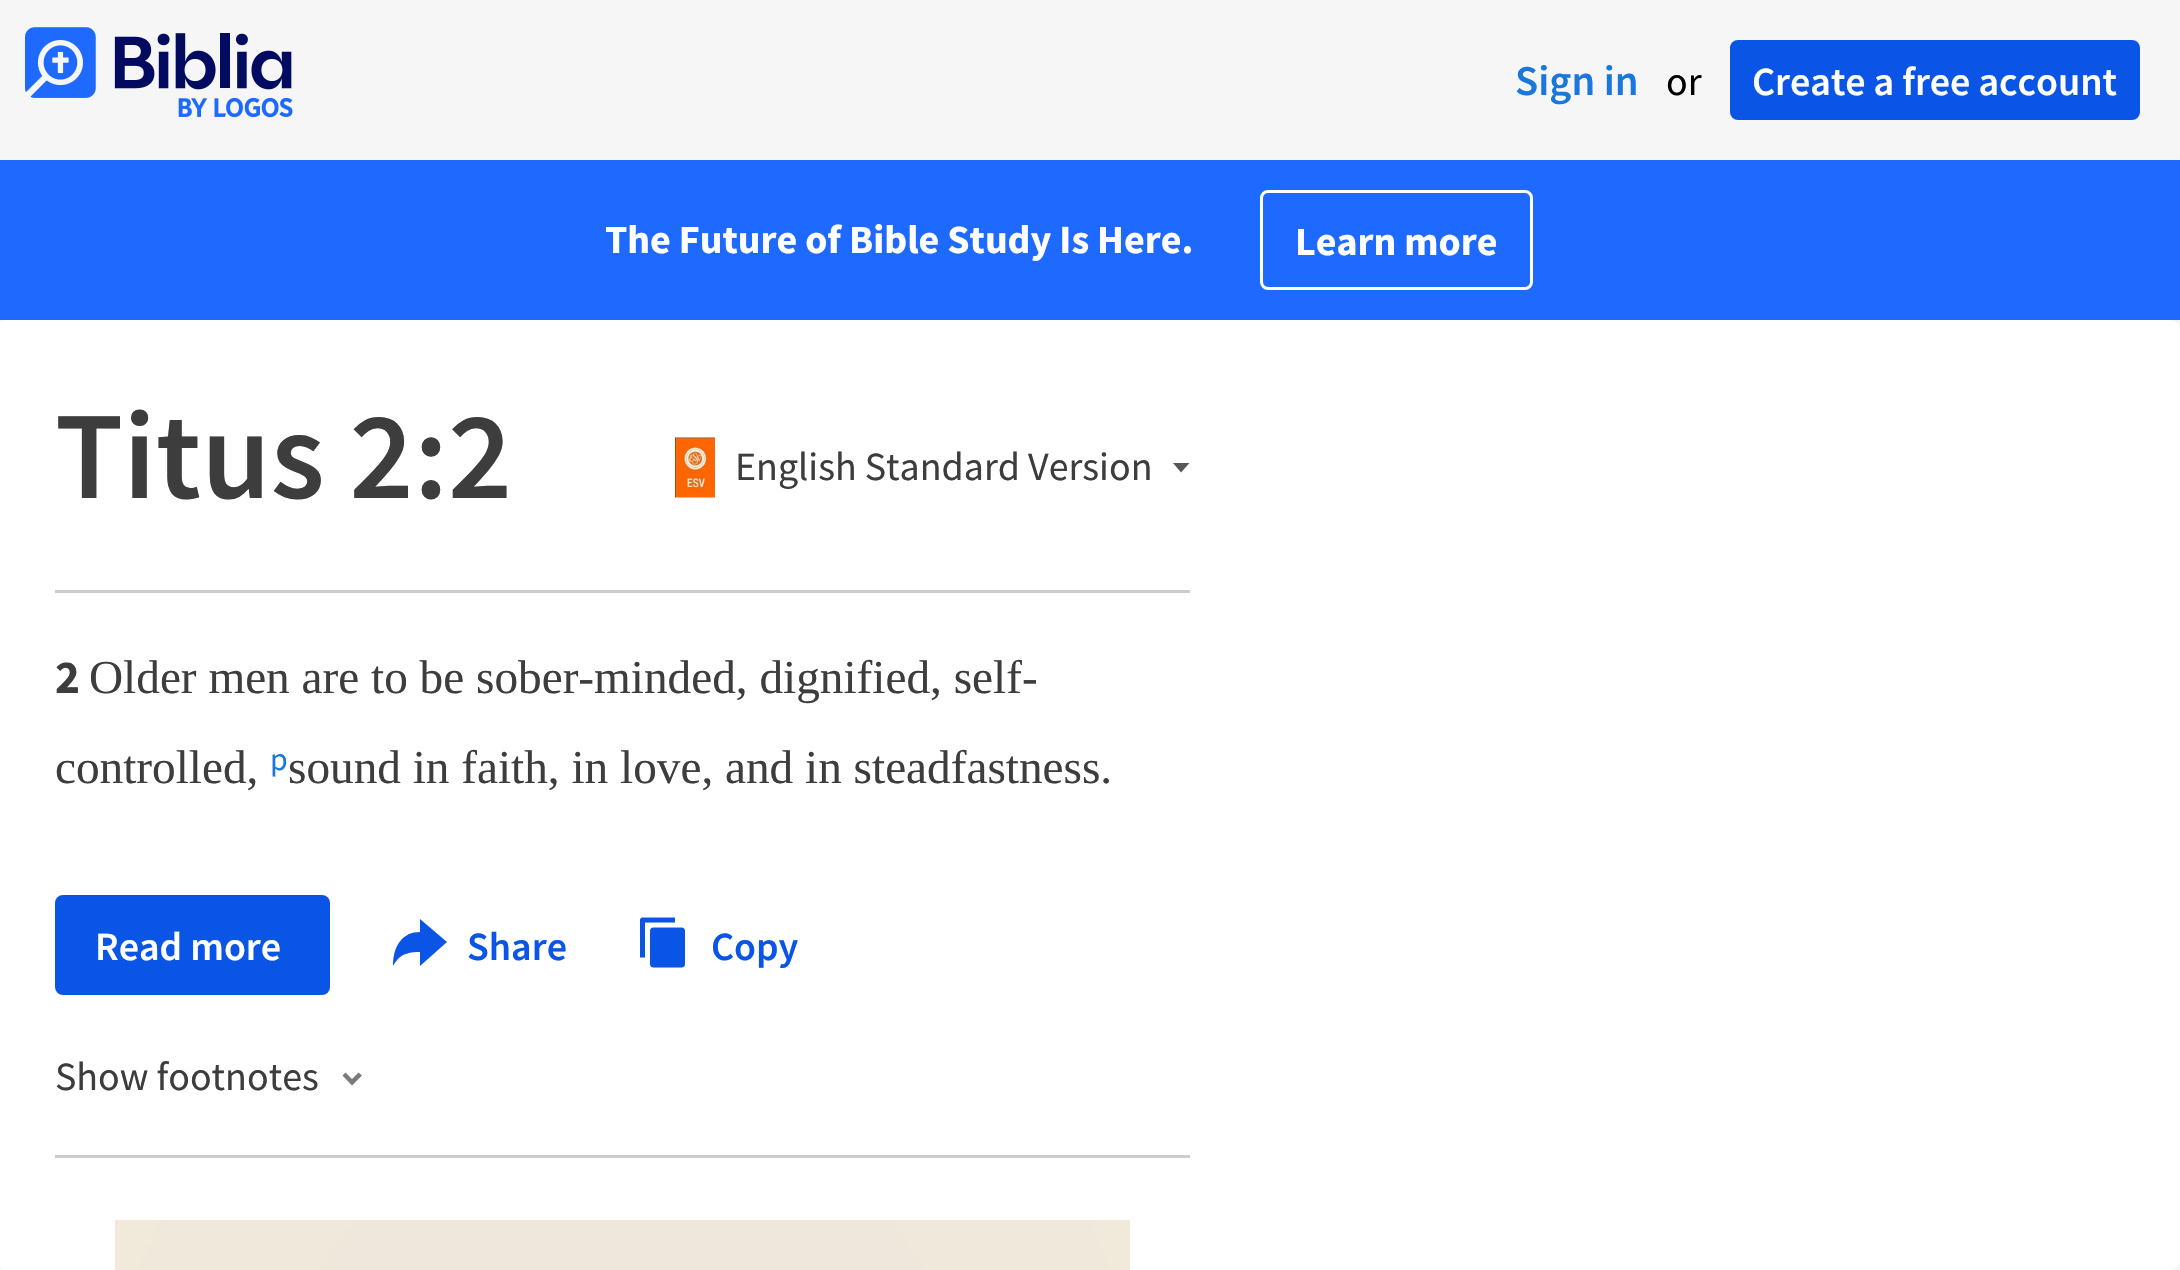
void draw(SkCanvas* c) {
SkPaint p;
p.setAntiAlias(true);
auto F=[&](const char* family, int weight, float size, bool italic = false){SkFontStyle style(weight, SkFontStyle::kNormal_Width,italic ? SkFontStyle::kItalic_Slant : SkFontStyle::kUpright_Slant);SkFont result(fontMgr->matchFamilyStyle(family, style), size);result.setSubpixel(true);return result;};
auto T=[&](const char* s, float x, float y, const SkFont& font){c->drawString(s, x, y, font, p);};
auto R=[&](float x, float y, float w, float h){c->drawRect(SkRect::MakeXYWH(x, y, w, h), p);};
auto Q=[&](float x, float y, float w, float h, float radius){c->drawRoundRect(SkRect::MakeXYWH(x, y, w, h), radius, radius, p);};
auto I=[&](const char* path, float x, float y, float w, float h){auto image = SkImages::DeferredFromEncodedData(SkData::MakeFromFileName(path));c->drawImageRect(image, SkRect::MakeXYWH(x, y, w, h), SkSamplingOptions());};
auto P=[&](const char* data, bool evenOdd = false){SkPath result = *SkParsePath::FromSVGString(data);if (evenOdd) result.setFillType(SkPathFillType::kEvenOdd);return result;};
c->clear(0xfff6f6f6);
I("1.png",25,27,268,91);
auto f1 = F("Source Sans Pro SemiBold",600,42.5);
p.setColor(0xff1977de);
T("Sign in",1515,95,f1);
auto f2 = F("Source Sans Pro",400,40);
p.setColor(0xff000000);
T("or",1666,95,f2);
p.setColor(0xff0a55e6);
Q(1730,40,410,80,8);
auto f3 = F("Source Sans Pro SemiBold",600,40);
p.setColor(0xffffffff);
T("Create a free account",1752,95,f3);
p.setColor(0xff1e6afe);
R(0,160,2180,160);
auto f4 = F("Source Sans Pro",700,40);
p.setColor(0xffffffff);
T("The Future of Bible Study Is Here.",605,253,f4);
p.setStroke(true);
p.setStrokeWidth(3);
c->drawRoundRect(SkRect::MakeXYWH(1261.5,191.5,270,97),6.5,6.5,p);
p.setStroke(false);
T("Learn more",1295,255,f4);
Q(-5,320,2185,950,10);
p.setColor(0xffcccccc);
R(55,590,1135,3);
auto f5 = F("Source Sans Pro SemiBold",600,125);
p.setColor(0xff3d3d3d);
T("Titus 2:2",55,498,f5);
I("2.png",675,437,40,61);
T("English Standard Version",735,480,f2);
c->save();
c->clipRect(SkRect::MakeXYWH(1173,463,17,10));
p.setColor(0xff585858);
c->drawPath(P("M1181 472.5l9-10h-17.5z",true),p);
c->restore();
auto f6 = F("Source Sans Pro",700,47.25);
p.setColor(0xff3d3d3d);
T("2",55,693,f6);
auto f7 = F("Liberation Serif",400,47.25);
T("Older men are to be sober-minded, dignified, self-",89,693,f7);
T("controlled,",55,783,f7);
auto f8 = F("Source Sans Pro",400,32);
p.setColor(0xff1977de);
T("p",270,770,f8);
p.setColor(0xff3d3d3d);
T("sound in faith, in love, and in steadfastness.",288,783,f7);
p.setColor(0xff0a55e6);
Q(55,895,275,100,8);
p.setColor(0xffffffff);
T("Read more",95,960,f3);
p.setColor(0xff0a55e6);
T("Share",467,960,f3);
c->drawPath(P("M420 932v-13l27 23l-27 24v-14c-18 0-22 6-27 14c0-21 10-34 27-34z",true),p);
I("3.png",640,917,45,51);
T("Copy",711,960,f3);
p.setColor(0xff3d3d3d);
T("Show footnotes",55,1090,f2);
p.setColor(0xff7a7a7a);
c->drawPath(P("M345.5 1072.5l6.5 6.5l6.5-6.5l3.5 3l-10 10l-9.5-10z",true),p);
p.setColor(0xffcccccc);
R(55,1155,1135,3);
I("4.png",115,1220,1015,50);
}
